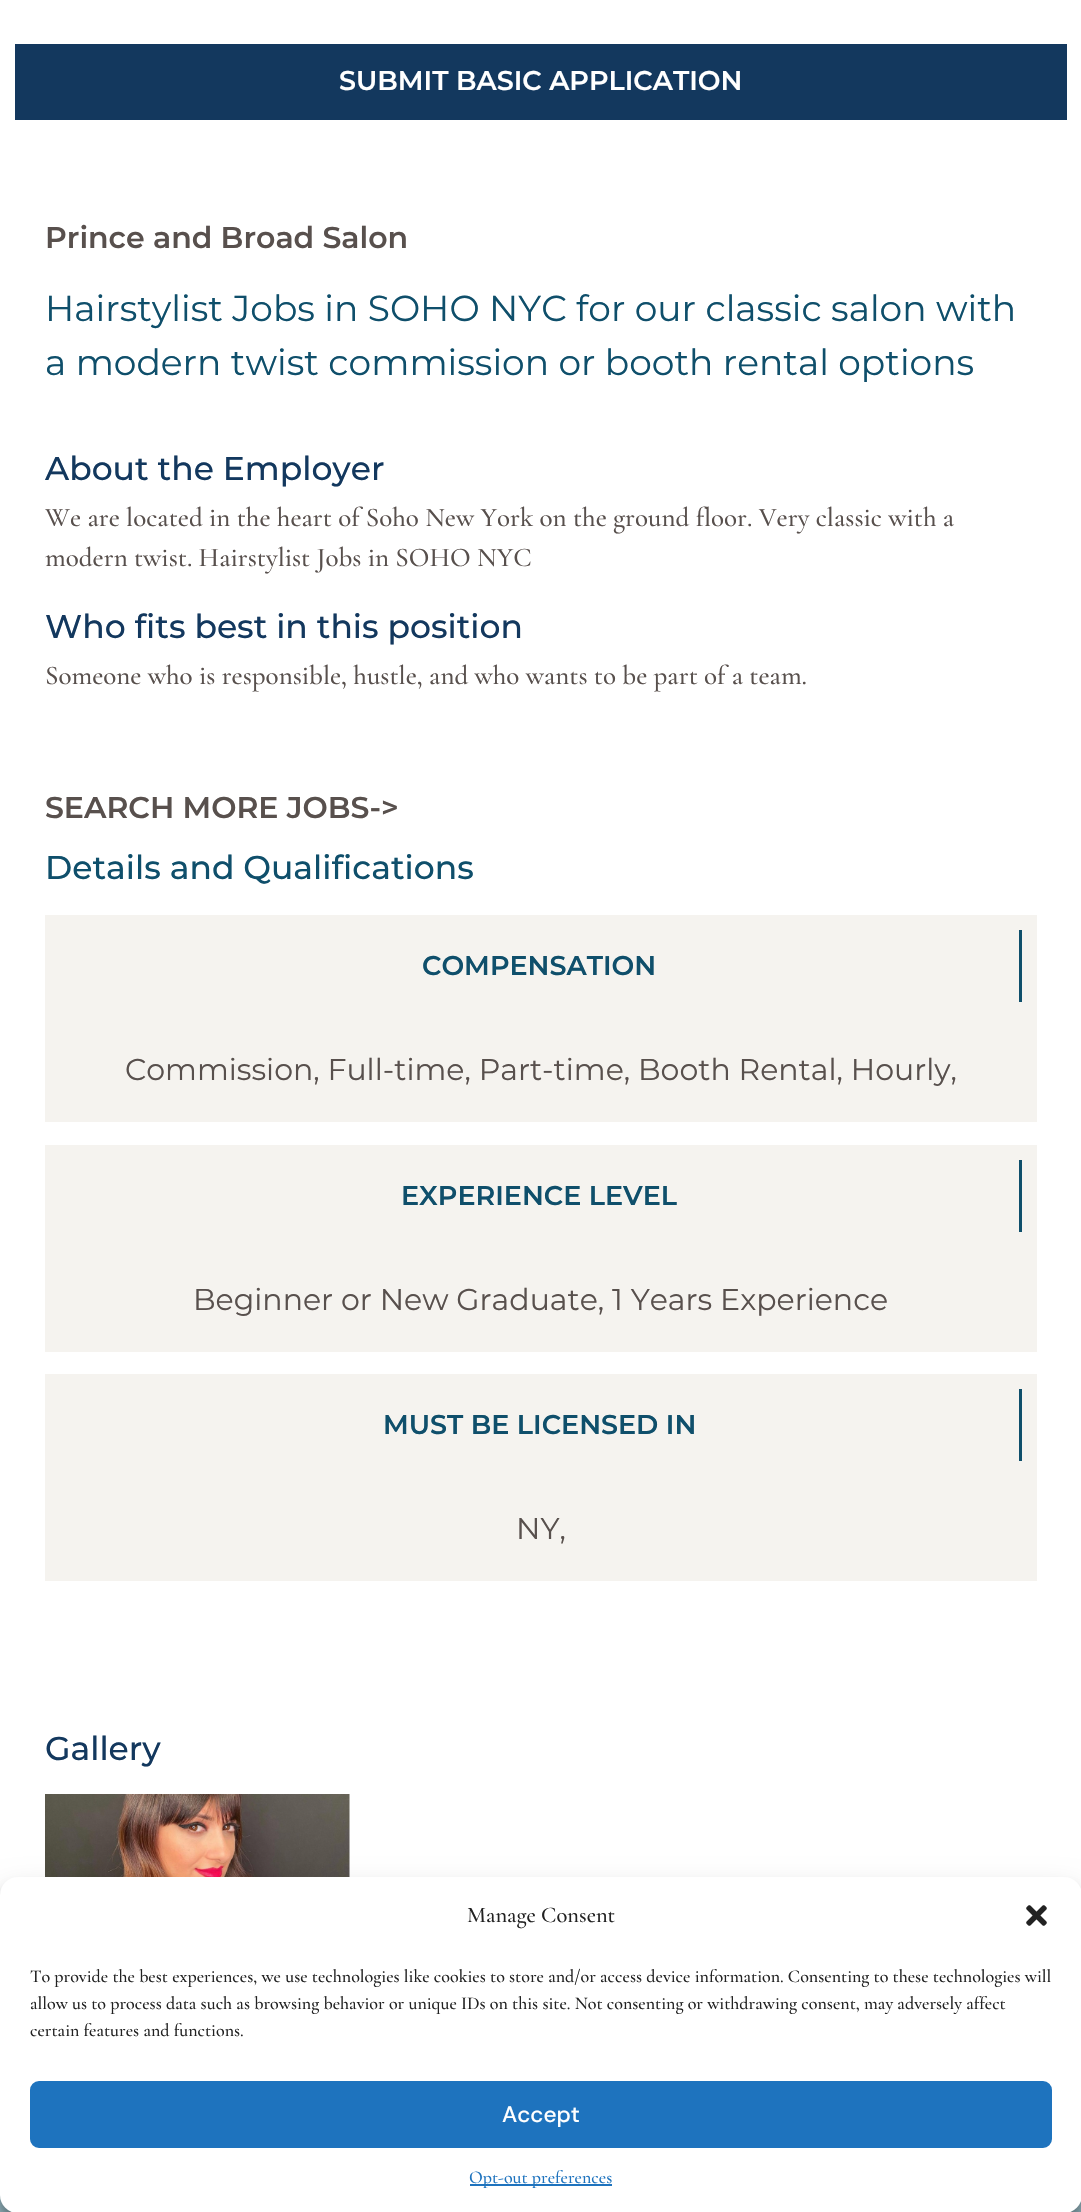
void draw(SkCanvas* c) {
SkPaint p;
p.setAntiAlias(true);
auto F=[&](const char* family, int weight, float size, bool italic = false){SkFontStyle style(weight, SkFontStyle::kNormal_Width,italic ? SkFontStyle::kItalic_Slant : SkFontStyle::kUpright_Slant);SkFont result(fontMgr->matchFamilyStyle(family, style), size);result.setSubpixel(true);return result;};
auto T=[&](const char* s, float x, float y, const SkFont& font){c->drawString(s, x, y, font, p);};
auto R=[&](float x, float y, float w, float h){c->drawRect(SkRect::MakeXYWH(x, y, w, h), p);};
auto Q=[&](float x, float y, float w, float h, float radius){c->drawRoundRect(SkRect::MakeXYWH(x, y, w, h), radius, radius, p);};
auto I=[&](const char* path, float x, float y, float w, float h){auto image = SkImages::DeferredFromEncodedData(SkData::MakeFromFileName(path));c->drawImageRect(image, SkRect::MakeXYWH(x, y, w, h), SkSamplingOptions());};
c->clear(0xffffffff);
p.setColor(0xff13385e);
R(15,44,1052,76);
auto f1 = F("Montserrat",600,27);
p.setColor(0xffffffff);
T("SUBMIT BASIC APPLICATION",339,90,f1);
auto f2 = F("Montserrat",600,30);
p.setColor(0xff58504d);
T("Prince and Broad Salon",45,248,f2);
auto f3 = F("Montserrat",400,36);
p.setColor(0xff0f4f6b);
T("Hairstylist Jobs in SOHO NYC for our classic salon with",45,321,f3);
T("a modern twist commission or booth rental options",45,375,f3);
auto f4 = F("Montserrat",500,33);
p.setColor(0xff13385e);
T("About the Employer",45,480,f4);
auto f5 = F("Cormorant Garamond",500,27);
p.setColor(0xff58504d);
T("We are located in the heart of Soho New York on the ground floor. Very classic with a",45,526,f5);
T("modern twist. Hairstylist Jobs in SOHO NYC",45,566,f5);
p.setColor(0xff13385e);
T("Who fits best in this position",45,638,f4);
p.setColor(0xff58504d);
T("Someone who is responsible, hustle, and who wants to be part of a team.",45,684,f5);
T("SEARCH MORE JOBS->",45,818,f2);
p.setColor(0xff0f4f6b);
T("Details and Qualifications",45,879,f4);
p.setColor(0xfff5f3ef);
R(45,915,992,207);
p.setColor(0xff0f4f6b);
R(1019,930,3,72);
T("COMPENSATION",422,975,f1);
auto f6 = F("Montserrat",400,30);
p.setColor(0xff58504d);
T("Commission, Full-time, Part-time, Booth Rental, Hourly,",125,1080,f6);
p.setColor(0xfff5f3ef);
R(45,1145,992,207);
p.setColor(0xff0f4f6b);
R(1019,1160,3,72);
T("EXPERIENCE LEVEL",401,1205,f1);
p.setColor(0xff58504d);
T("Beginner or New Graduate, 1 Years Experience",193,1310,f6);
p.setColor(0xfff5f3ef);
R(45,1374,992,207);
p.setColor(0xff0f4f6b);
R(1019,1389,3,72);
T("MUST BE LICENSED IN",383,1434,f1);
p.setColor(0xff58504d);
T("NY,",516,1539,f6);
p.setColor(0xff13385e);
T("Gallery",45,1760,f4);
I("1.png",45,1794,305,83);
p.setColor(0xff96b8c2);
R(0,2195,1081,17);
p.setColor(0x3b000000);
p.setMaskFilter(SkMaskFilter::MakeBlur(kNormal_SkBlurStyle, 4.5));
c->drawRoundRect(SkRect::MakeXYWH(0,1886,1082,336),18,18,p);
p.setMaskFilter(nullptr);
p.setColor(0x30000000);
p.setMaskFilter(SkMaskFilter::MakeBlur(kNormal_SkBlurStyle, 15));
c->drawRoundRect(SkRect::MakeXYWH(0,1892,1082,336),18,18,p);
p.setMaskFilter(nullptr);
p.setColor(0xffffffff);
Q(0,1877,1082,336,18);
auto f7 = F("Cormorant Garamond",500,22.5);
p.setColor(0xff222222);
T("Manage Consent",467,1922,f7);
I("2.png",1026,1905,21,21);
auto f8 = F("Cormorant Garamond",500,18);
T("To provide the best experiences, we use technologies like cookies to store and/or access device information. Consenting to these technologies will",30,1982,f8);
T("allow us to process data such as browsing behavior or unique IDs on this site. Not consenting or withdrawing consent, may adversely affect",30,2009,f8);
T("certain features and functions.",30,2036,f8);
p.setColor(0xff1e73be);
c->drawRoundRect(SkRect::MakeXYWH(31,2082,1020,65),8,8,p);
p.setStroke(true);
p.setStrokeWidth(2);
c->drawRoundRect(SkRect::MakeXYWH(31,2082,1020,65),8,8,p);
auto f9 = F("DM Sans",500,22.5);
p.setStroke(false);
p.setColor(0xffffffff);
T("Accept",502,2122,f9);
p.setColor(0xff1e73be);
R(470,2184,142,2);
T("Opt-out preferences",469,2183,f8);
}
